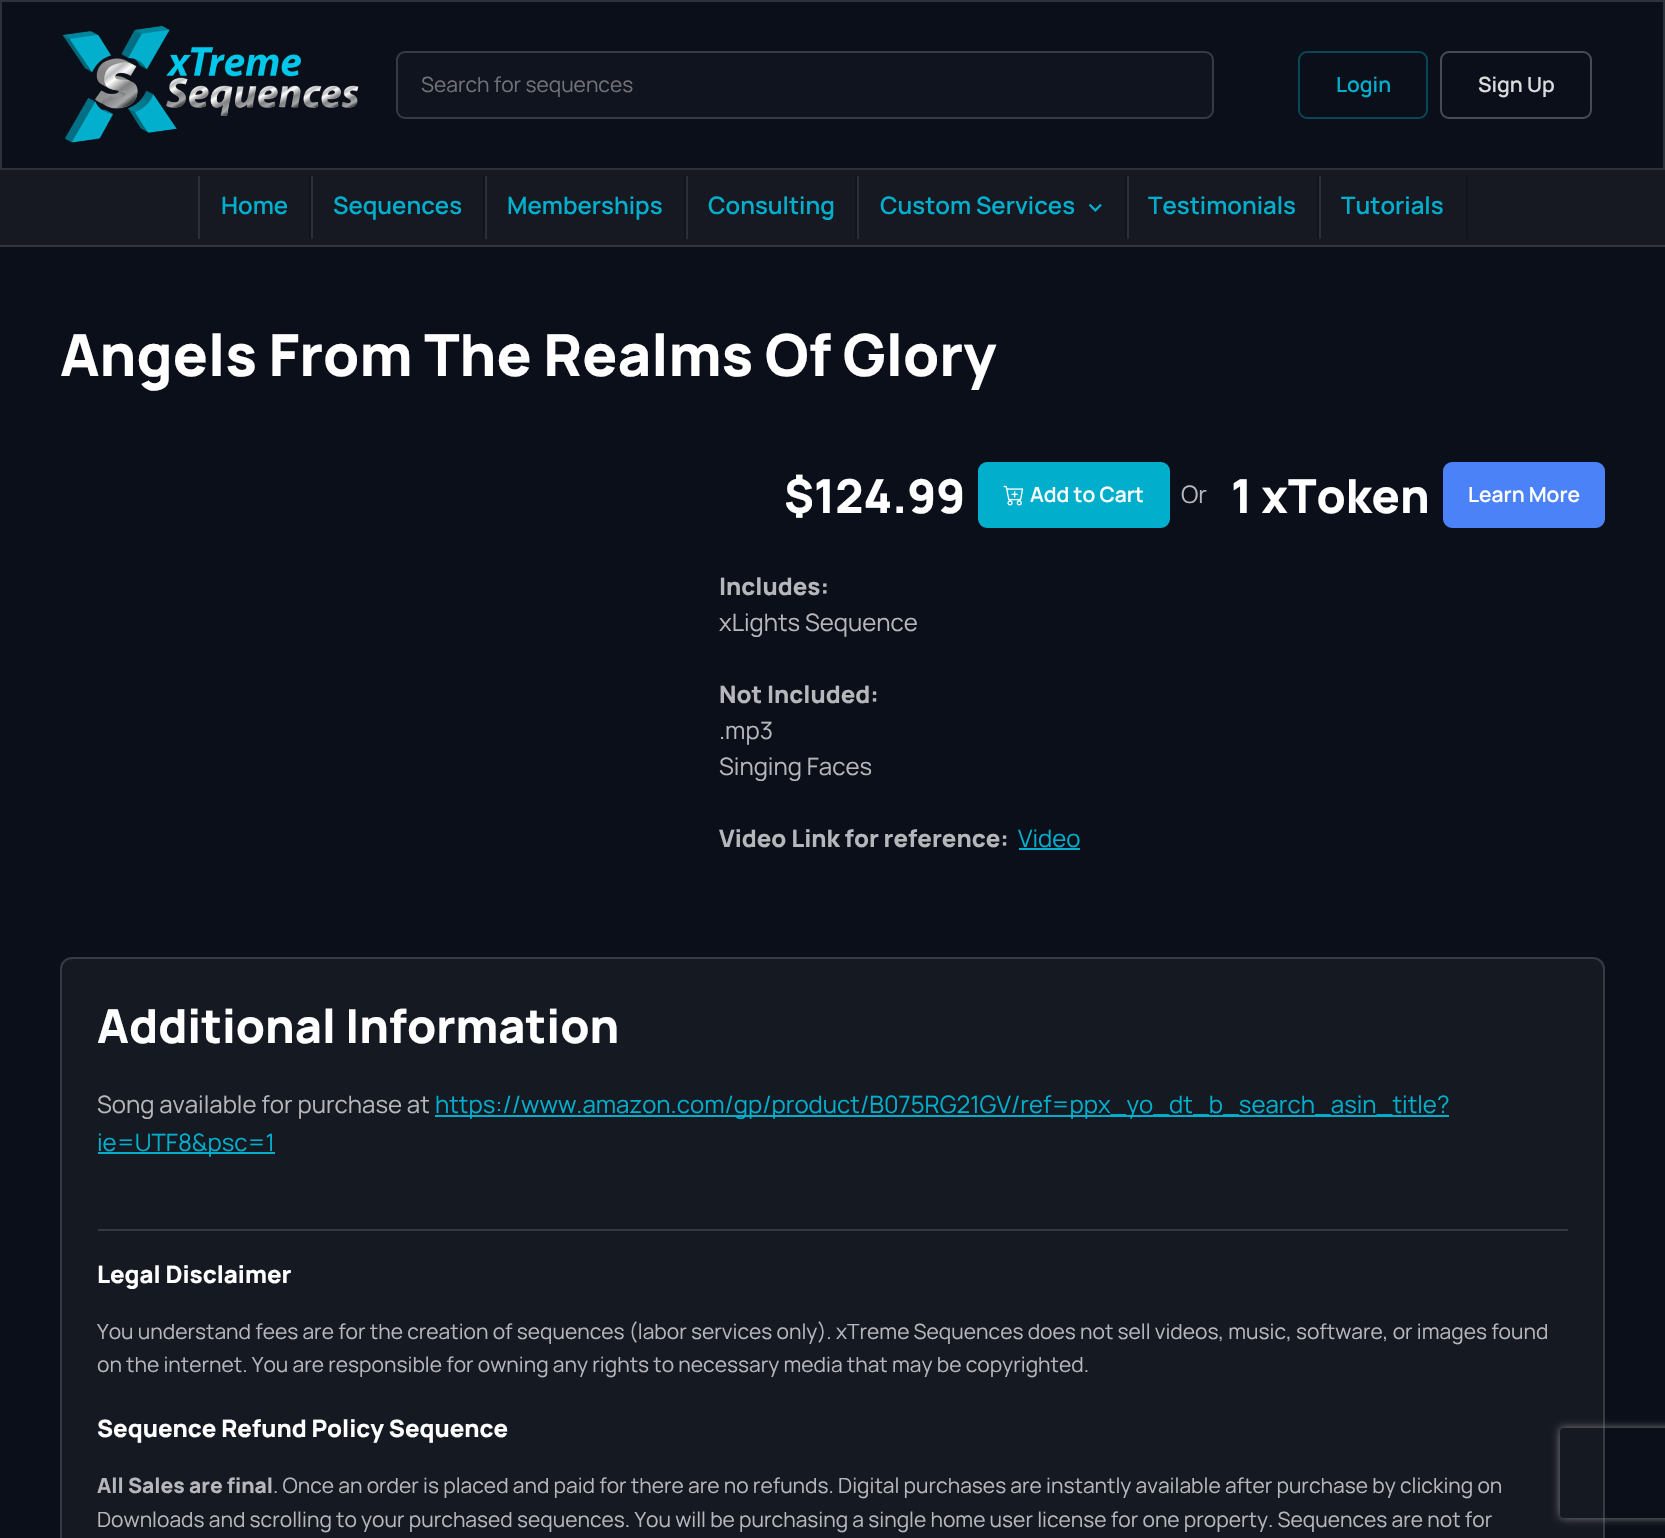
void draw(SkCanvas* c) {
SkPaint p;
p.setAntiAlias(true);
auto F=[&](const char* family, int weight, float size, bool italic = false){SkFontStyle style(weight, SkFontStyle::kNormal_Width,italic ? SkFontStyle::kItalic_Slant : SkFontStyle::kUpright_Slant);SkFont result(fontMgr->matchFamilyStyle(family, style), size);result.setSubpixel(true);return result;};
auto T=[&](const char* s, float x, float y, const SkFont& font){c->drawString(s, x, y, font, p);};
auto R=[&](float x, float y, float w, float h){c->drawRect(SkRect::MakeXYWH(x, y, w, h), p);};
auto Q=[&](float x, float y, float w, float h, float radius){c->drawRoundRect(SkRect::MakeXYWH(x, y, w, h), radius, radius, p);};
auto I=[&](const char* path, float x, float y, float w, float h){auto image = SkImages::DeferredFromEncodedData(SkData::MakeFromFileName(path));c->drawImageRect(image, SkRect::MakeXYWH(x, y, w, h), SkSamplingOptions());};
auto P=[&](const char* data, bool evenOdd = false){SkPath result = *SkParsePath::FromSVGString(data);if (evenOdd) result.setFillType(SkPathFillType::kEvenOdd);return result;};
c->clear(0xff0b0f19);
p.setColor(0xff2d3139);
R(0,246,1665,1);
p.setStroke(true);
p.setStrokeWidth(2);
c->drawRect(SkRect::MakeXYWH(1,1,1663,168),p);
I("1.png",62,25,297,118);
p.setStroke(false);
p.setColor(0xff10141e);
c->drawRoundRect(SkRect::MakeXYWH(397,52,816,66),8,8,p);
p.setStroke(true);
p.setColor(0xff373a42);
c->drawRoundRect(SkRect::MakeXYWH(397,52,816,66),8,8,p);
auto f1 = F("Manrope",400,21);
p.setStroke(false);
p.setColor(0xff707278);
T("Search for sequences",421,92,f1);
p.setStroke(true);
p.setColor(0xff074758);
c->drawRoundRect(SkRect::MakeXYWH(1299,52,128,66),8,8,p);
auto f2 = F("Manrope",600,21);
p.setStroke(false);
p.setColor(0xff01aecc);
T("Login",1336,92,f2);
p.setStroke(true);
p.setColor(0xff484b53);
c->drawRoundRect(SkRect::MakeXYWH(1441,52,150,66),8,8,p);
p.setStroke(false);
p.setColor(0xffdadbdd);
T("Sign Up",1478,92,f2);
p.setColor(0xff161822);
R(0,170,1665,75);
p.setColor(0xff373841);
R(0,245,1665,1);
p.setColor(0xff12131b);
R(309,176,2,63);
p.setColor(0xff2d2f38);
R(198,176,2,63);
auto f3 = F("Manrope",600,24);
p.setColor(0xff01aecc);
T("Home",221,214,f3);
p.setColor(0xff12131b);
R(483,176,2,63);
p.setColor(0xff2d2f38);
R(311,176,2,63);
p.setColor(0xff01aecc);
T("Sequences",333,214,f3);
p.setColor(0xff12131b);
R(684,176,2,63);
p.setColor(0xff2d2f38);
R(485,176,2,63);
p.setColor(0xff01aecc);
T("Memberships",507,214,f3);
p.setColor(0xff12131b);
R(855,176,2,63);
p.setColor(0xff2d2f38);
R(686,176,2,63);
p.setColor(0xff01aecc);
T("Consulting",708,214,f3);
p.setColor(0xff12131b);
R(1125,176,2,63);
p.setColor(0xff2d2f38);
R(857,176,2,63);
p.setColor(0xff01aecc);
T("Custom Services",880,214,f3);
I("2.png",1088,203,14,9);
p.setColor(0xff12131b);
R(1317,176,2,63);
p.setColor(0xff2d2f38);
R(1127,176,2,63);
p.setColor(0xff01aecc);
T("Testimonials",1148,214,f3);
p.setColor(0xff12131b);
R(1466,176,2,63);
p.setColor(0xff2d2f38);
R(1319,176,2,63);
p.setColor(0xff01aecc);
T("Tutorials",1341,214,f3);
auto f4 = F("Manrope",800,58);
p.setColor(0xffffffff);
T("Angels From The Realms Of Glory",60,376,f4);
auto f5 = F("Manrope",800,46.75);
T("$124.99",784,513,f5);
p.setColor(0xff01aecc);
c->drawRoundRect(SkRect::MakeXYWH(979,463,190,64),8,8,p);
p.setStroke(true);
c->drawRoundRect(SkRect::MakeXYWH(979,463,190,64),8,8,p);
I("3.png",1003,485,21,21);
p.setStroke(false);
p.setColor(0xffffffff);
T("Add to Cart",1030,502,f2);
auto f6 = F("Manrope",400,24);
p.setColor(0xffb6b7ba);
T("Or",1181,503,f6);
p.setColor(0xffffffff);
T("1 xToken",1231,513,f5);
p.setColor(0xff4c82f7);
c->drawRoundRect(SkRect::MakeXYWH(1444,463,160,64),8,8,p);
p.setStroke(true);
c->drawRoundRect(SkRect::MakeXYWH(1444,463,160,64),8,8,p);
p.setStroke(false);
p.setColor(0xffffffff);
T("Learn More",1468,502,f2);
auto f7 = F("Manrope",800,24);
p.setColor(0xffb6b7ba);
T("Includes:",719,595,f7);
T("xLights Sequence",719,631,f6);
T("Not Included:",719,703,f7);
T(".mp3",719,739,f6);
T("Singing Faces",719,775,f6);
T("Video Link for reference:",719,847,f7);
p.setColor(0xff01aecc);
T("Video",1018,847,f6);
R(1019,848,61,2);
p.setColor(0xff151922);
Q(60,957,1545,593,12);
p.setStroke(true);
p.setColor(0x24ffffff);
c->drawRoundRect(SkRect::MakeXYWH(61,958,1543,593),11,11,p);
p.setStroke(false);
p.setColor(0xffffffff);
T("Additional Information",97,1043,f5);
p.setColor(0xffb6b7ba);
T("Song available for purchase at",97,1113,f6);
p.setColor(0xff01aecc);
R(435,1115,1014,2);
T("https://www.amazon.com/gp/product/B075RG21GV/ref=ppx_yo_dt_b_search_asin_title?",435,1113,f6);
R(98,1152,177,2);
T("ie=UTF8&psc=1",97,1151,f6);
p.setColor(0xff363941);
R(98,1229,1470,2);
p.setColor(0xffffffff);
T("Legal Disclaimer",97,1283,f7);
p.setColor(0xffb6b7ba);
T("You understand fees are for the creation of sequences (labor services only). xTreme Sequences does not sell videos, music, software, or images found",97,1339,f1);
T("on the internet. You are responsible for owning any rights to necessary media that may be copyrighted.",97,1372,f1);
p.setColor(0xffffffff);
T("Sequence Refund Policy Sequence",97,1437,f7);
auto f8 = F("Manrope",800,21);
p.setColor(0xffb6b7ba);
T("All Sales are final",97,1493,f8);
T(". Once an order is placed and paid for there are no refunds. Digital purchases are instantly available after purchase by clicking on",273,1493,f1);
T("Downloads and scrolling to your purchased sequences. You will be purchasing a single home user license for one property. Sequences are not for",97,1527,f1);
c->save();
c->clipPath(P("M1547 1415h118v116h-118zm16 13h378c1.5 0 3 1.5 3 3v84c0 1.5-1.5 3-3 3h-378c-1.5 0-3-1.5-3-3v-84c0-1.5 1.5-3 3-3z",true),true);
p.setColor(0xff808080);
p.setMaskFilter(SkMaskFilter::MakeBlur(kNormal_SkBlurStyle, 4));
c->drawRoundRect(SkRect::MakeXYWH(1560,1428,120,90),3,3,p);
p.setMaskFilter(nullptr);
c->restore();
}
